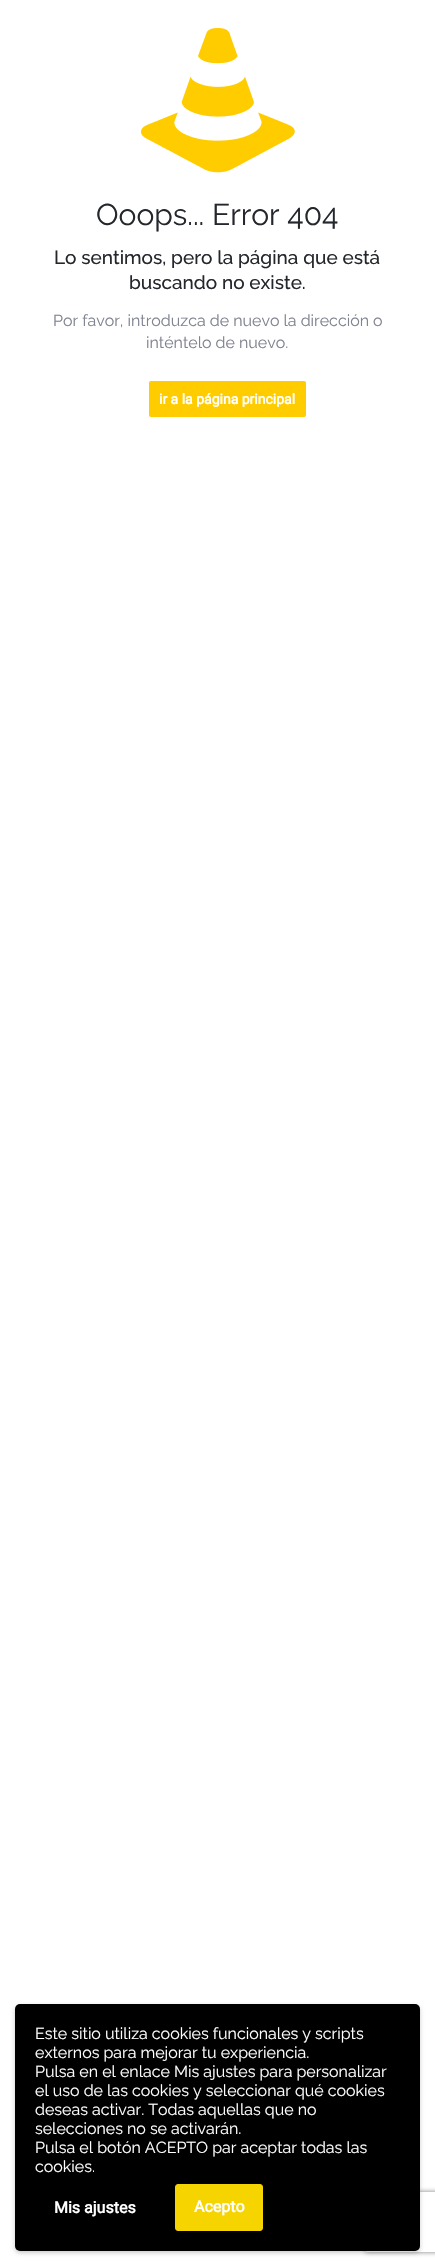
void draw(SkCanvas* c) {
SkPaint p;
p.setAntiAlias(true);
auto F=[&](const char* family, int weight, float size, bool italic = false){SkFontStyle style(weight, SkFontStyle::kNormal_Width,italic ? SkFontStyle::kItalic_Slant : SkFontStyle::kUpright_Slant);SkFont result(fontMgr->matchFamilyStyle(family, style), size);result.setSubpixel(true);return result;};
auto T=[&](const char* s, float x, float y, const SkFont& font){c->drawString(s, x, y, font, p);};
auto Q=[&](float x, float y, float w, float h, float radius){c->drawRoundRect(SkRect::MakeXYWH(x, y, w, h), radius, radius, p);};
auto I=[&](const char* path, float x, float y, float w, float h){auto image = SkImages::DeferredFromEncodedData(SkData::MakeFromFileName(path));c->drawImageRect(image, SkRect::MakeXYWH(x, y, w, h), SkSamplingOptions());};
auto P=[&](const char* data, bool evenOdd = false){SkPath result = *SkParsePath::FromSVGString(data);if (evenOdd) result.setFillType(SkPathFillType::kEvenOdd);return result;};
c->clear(0xffffffff);
I("1.png",141,28,154,145);
auto f1 = F("Raleway",400,30);
p.setColor(0xff24272c);
T("Ooops... Error 404",96,225,f1);
auto f2 = F("Raleway",500,19);
T("Lo sentimos, pero la página que está",54,264,f2);
T("buscando no existe.",129,289,f2);
auto f3 = F("Raleway",400,16);
p.setColor(0xff80838f);
T("Por favor, introduzca de nuevo la dirección o",53,326,f3);
T("inténtelo de nuevo.",146,348,f3);
p.setColor(0xffffcc00);
Q(149,381,157,36,2);
auto f4 = F("Roboto",700,14);
p.setColor(0xffffffff);
T("ir a la página principal",159,404,f4);
p.setColor(0x33000000);
p.setMaskFilter(SkMaskFilter::MakeBlur(kNormal_SkBlurStyle, 2));
c->drawRoundRect(SkRect::MakeXYWH(15,2006,405,247),5,5,p);
p.setMaskFilter(nullptr);
c->save();
c->clipPath(P("M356 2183h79v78h-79zm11 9h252c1 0 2 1 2 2v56c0 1-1 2-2 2h-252c-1 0-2-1-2-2v-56c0-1 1-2 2-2z",true),true);
p.setColor(0xff808080);
p.setMaskFilter(SkMaskFilter::MakeBlur(kNormal_SkBlurStyle, 2.5));
c->drawRoundRect(SkRect::MakeXYWH(365,2192,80,60),2,2,p);
p.setMaskFilter(nullptr);
c->restore();
p.setColor(0xff000000);
Q(15,2004,405,247,5);
p.setColor(0xffffffff);
T("Este sitio utiliza cookies funcionales y scripts",35,2039,f3);
T("externos para mejorar tu experiencia.",35,2058,f3);
T("Pulsa en el enlace Mis ajustes para personalizar",35,2077,f3);
T("el uso de las cookies y seleccionar qué cookies",35,2096,f3);
T("deseas activar. Todas aquellas que no",35,2115,f3);
T("selecciones no se activarán.",35,2134,f3);
T("Pulsa el botón ACEPTO par aceptar todas las",35,2153,f3);
T("cookies.",35,2172,f3);
auto f5 = F("Roboto",700,16);
T("Mis ajustes",54,2213,f5);
p.setColor(0xfff5d400);
c->drawRoundRect(SkRect::MakeXYWH(175.5,2184.5,87,46),2.5,2.5,p);
p.setStroke(true);
p.setStrokeWidth(1);
c->drawRoundRect(SkRect::MakeXYWH(175.5,2184.5,87,46),2.5,2.5,p);
p.setStroke(false);
p.setColor(0xffffffff);
T("Acepto",194,2212,f5);
}
